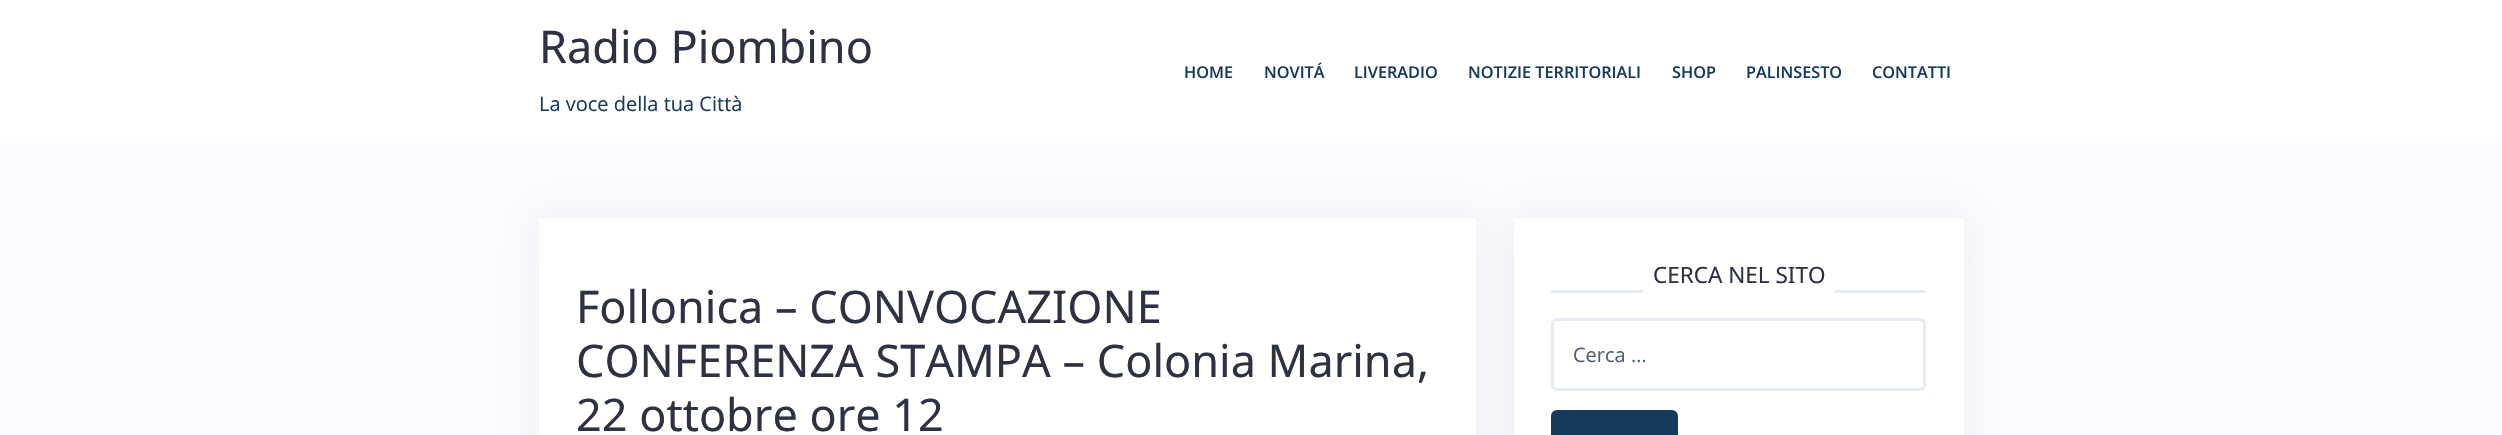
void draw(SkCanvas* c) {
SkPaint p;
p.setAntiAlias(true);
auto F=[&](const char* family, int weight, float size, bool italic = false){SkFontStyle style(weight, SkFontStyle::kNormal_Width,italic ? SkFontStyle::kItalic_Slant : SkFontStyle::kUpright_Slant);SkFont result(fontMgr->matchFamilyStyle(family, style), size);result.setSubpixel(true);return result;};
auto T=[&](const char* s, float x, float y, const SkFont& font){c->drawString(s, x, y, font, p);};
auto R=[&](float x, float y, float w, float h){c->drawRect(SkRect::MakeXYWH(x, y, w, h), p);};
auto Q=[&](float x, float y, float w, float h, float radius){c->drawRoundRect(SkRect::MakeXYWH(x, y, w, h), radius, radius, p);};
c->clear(0xfffafbff);
p.setColor(0xffffffff);
R(0,0,2502,143);
auto f1 = F("Noto Sans",400,45);
p.setColor(0xff2d3142);
T("Radio Piombino",539,63,f1);
auto f2 = F("Open Sans",400,20);
p.setColor(0xff153a5e);
T("La voce della tua Città",539,111,f2);
auto f3 = F("Open Sans",600,16.25);
T("HOME",1184,78,f3);
T("NOVITÁ",1264,78,f3);
T("LIVERADIO",1354,78,f3);
T("NOTIZIE TERRITORIALI",1468,78,f3);
T("SHOP",1672,78,f3);
T("PALINSESTO",1746,78,f3);
T("CONTATTI",1872,78,f3);
p.setColor(0x1a7a7a7a);
p.setMaskFilter(SkMaskFilter::MakeBlur(kNormal_SkBlurStyle, 20));
c->drawRect(SkRect::MakeXYWH(539,218,937,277),p);
p.setMaskFilter(nullptr);
p.setColor(0xffffffff);
R(539,218,937,217);
p.setColor(0xff2d3142);
T("Follonica – CONVOCAZIONE",576,323,f1);
T("CONFERENZA STAMPA – Colonia Marina,",576,377,f1);
T("22 ottobre ore 12",576,431,f1);
p.setColor(0x1a7a7a7a);
p.setMaskFilter(SkMaskFilter::MakeBlur(kNormal_SkBlurStyle, 20));
c->drawRect(SkRect::MakeXYWH(1514,218,450,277),p);
p.setMaskFilter(nullptr);
p.setColor(0xffffffff);
R(1514,218,450,217);
p.setColor(0xffe5eaf5);
R(1551,290,375,3);
p.setColor(0xffffffff);
R(1643,290,192,3);
auto f4 = F("Noto Sans",400,22.5);
p.setColor(0xff2d3142);
T("CERCA NEL SITO",1653,283,f4);
p.setStroke(true);
p.setStrokeWidth(3);
p.setColor(0xffe5eaf5);
c->drawRoundRect(SkRect::MakeXYWH(1552.5,319.5,372,70),4.5,4.5,p);
p.setStroke(false);
p.setColor(0xff4f5d75);
T("Cerca …",1573,362,f2);
p.setColor(0xff153a5e);
Q(1551,410,127,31,6);
}
